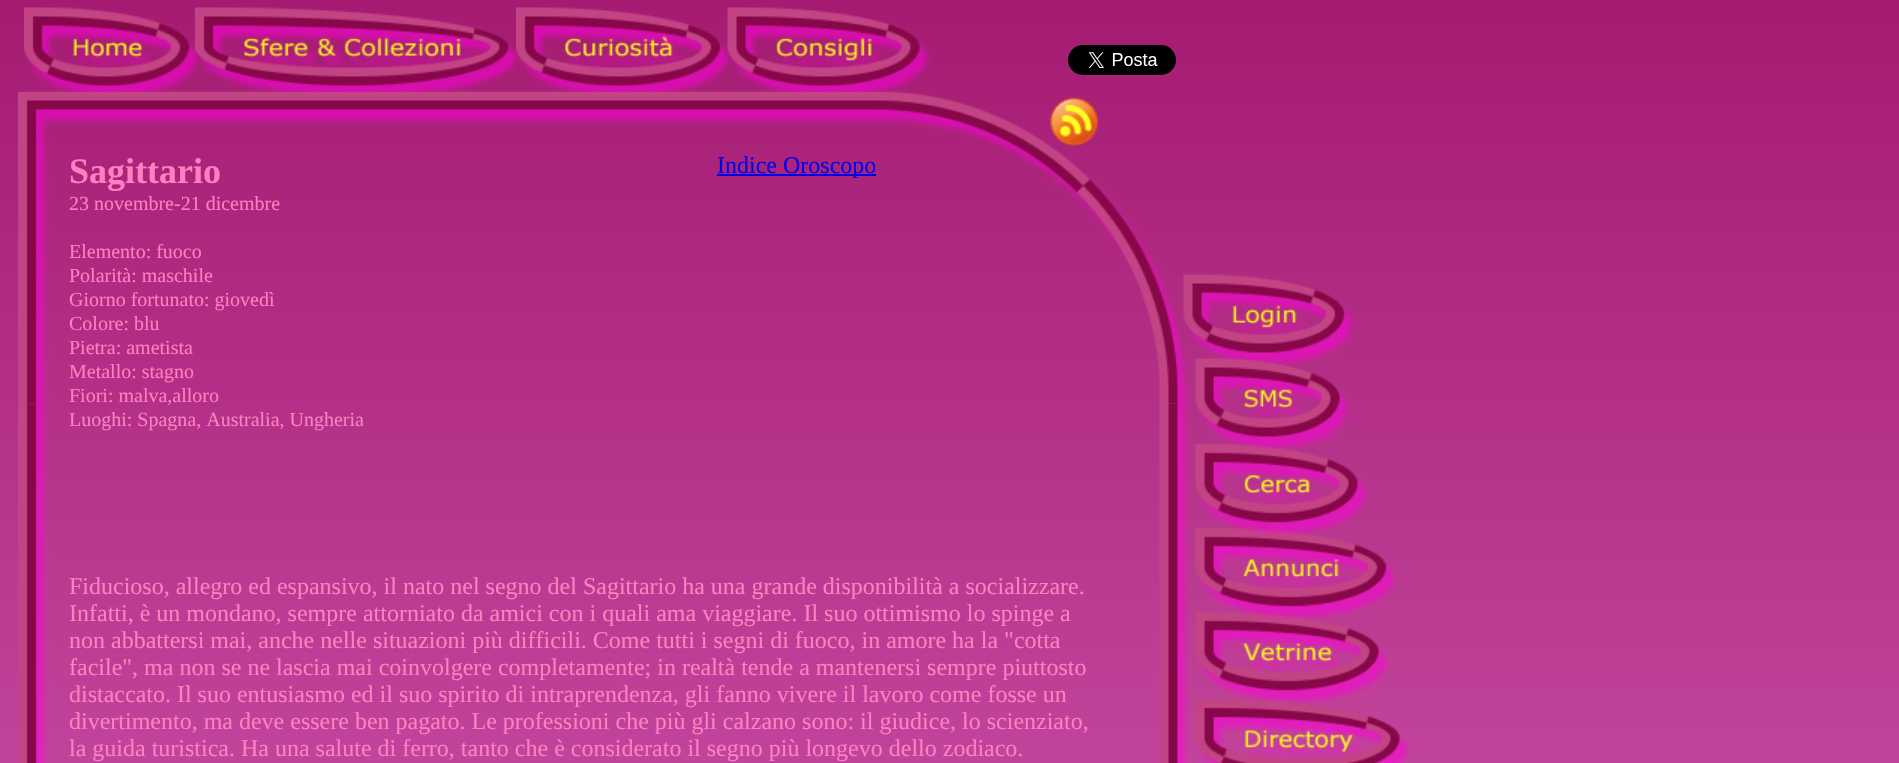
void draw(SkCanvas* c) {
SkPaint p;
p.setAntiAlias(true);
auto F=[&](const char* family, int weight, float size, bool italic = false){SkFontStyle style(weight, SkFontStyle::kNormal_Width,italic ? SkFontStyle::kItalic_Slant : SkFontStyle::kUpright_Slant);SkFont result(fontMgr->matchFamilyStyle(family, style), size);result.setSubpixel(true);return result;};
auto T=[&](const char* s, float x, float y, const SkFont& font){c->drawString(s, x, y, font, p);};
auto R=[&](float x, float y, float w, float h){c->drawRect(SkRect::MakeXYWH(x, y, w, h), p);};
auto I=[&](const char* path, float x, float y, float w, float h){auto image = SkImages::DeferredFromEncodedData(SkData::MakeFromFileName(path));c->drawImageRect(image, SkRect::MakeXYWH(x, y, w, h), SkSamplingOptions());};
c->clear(0xffffffff);
I("1.png",0,0,1899,763);
I("2.png",24,7,176,85);
I("4.png",516,7,215,85);
I("3.png",195,7,325,85);
I("5.png",727,7,204,87);
I("6.png",1068,45,108,30);
I("9.png",18,403,1171,360);
I("10.png",1183,274,172,93);
I("7.png",18,91,1171,313);
I("8.png",1050,97,48,49);
auto f1 = F("Liberation Serif",700,36);
p.setColor(0xffff80c0);
T("Sagittario",69,183,f1);
p.setColor(0xff0000ee);
R(717,174,159,2);
auto f2 = F("Liberation Serif",400,24);
T("Indice Oroscopo",717,173,f2);
auto f3 = F("Liberation Serif",400,20);
p.setColor(0xffff80c0);
T("23 novembre-21 dicembre",69,210,f3);
T("Elemento: fuoco",69,258,f3);
T("Polarità: maschile",69,282,f3);
T("Giorno fortunato: giovedì",69,306,f3);
T("Colore: blu",69,330,f3);
T("Pietra: ametista",69,354,f3);
T("Metallo: stagno",69,378,f3);
T("Fiori: malva,alloro",69,402,f3);
T("Luoghi: Spagna, Australia, Ungheria",69,426,f3);
T("Fiducioso, allegro ed espansivo, il nato nel segno del Sagittario ha una grande disponibilità a socializzare.",69,594,f2);
T("Infatti, è un mondano, sempre attorniato da amici con i quali ama viaggiare. Il suo ottimismo lo spinge a",69,621,f2);
T("non abbattersi mai, anche nelle situazioni più difficili. Come tutti i segni di fuoco, in amore ha la \"cotta",69,648,f2);
T("facile\", ma non se ne lascia mai coinvolgere completamente; in realtà tende a mantenersi sempre piuttosto",69,675,f2);
T("distaccato. Il suo entusiasmo ed il suo spirito di intraprendenza, gli fanno vivere il lavoro come fosse un",69,702,f2);
T("divertimento, ma deve essere ben pagato. Le professioni che più gli calzano sono: il giudice, lo scienziato,",69,729,f2);
T("la guida turistica. Ha una salute di ferro, tanto che è considerato il segno più longevo dello zodiaco.",69,756,f2);
I("14.png",1195,612,194,92);
I("13.png",1195,528,202,93);
I("12.png",1195,444,174,93);
I("11.png",1195,358,156,93);
I("15.png",1195,699,215,64);
}
